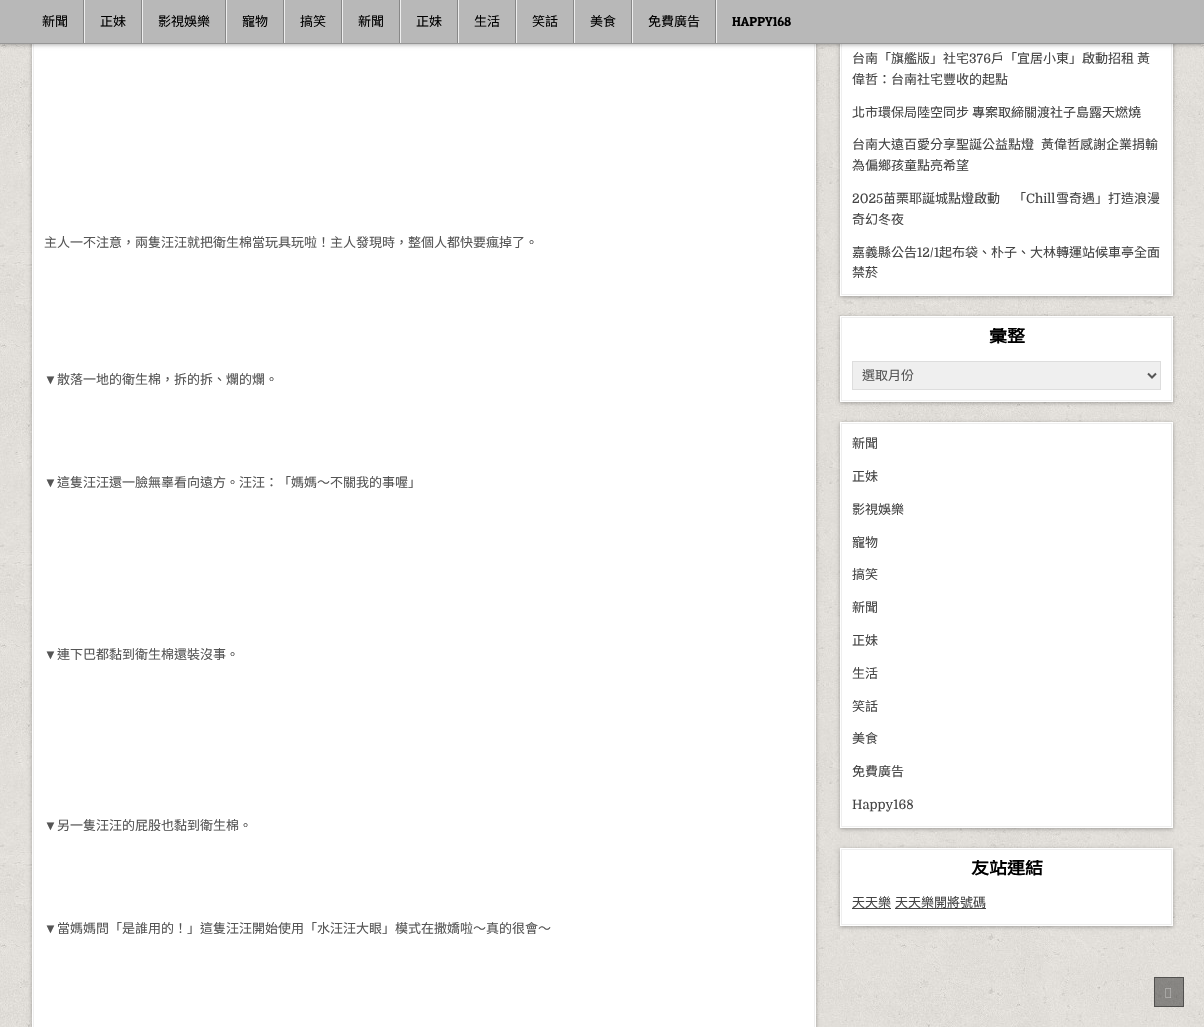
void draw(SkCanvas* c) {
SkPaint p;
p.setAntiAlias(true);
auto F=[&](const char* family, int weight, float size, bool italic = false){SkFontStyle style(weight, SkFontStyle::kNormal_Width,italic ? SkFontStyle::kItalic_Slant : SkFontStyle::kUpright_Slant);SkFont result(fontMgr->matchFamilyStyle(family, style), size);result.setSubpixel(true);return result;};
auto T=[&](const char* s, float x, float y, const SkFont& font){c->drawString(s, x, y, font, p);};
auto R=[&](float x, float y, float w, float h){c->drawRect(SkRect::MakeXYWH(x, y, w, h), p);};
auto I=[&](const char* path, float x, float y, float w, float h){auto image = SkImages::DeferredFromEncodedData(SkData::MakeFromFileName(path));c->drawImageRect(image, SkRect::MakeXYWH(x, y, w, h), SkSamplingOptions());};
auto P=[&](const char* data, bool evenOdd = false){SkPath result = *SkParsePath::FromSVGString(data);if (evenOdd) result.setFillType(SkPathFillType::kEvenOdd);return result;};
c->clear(0xffffffff);
I("1.png",0,44,1204,983);
p.setColor(0x4d000000);
p.setMaskFilter(SkMaskFilter::MakeBlur(kNormal_SkBlurStyle, 2));
c->drawRect(SkRect::MakeXYWH(32,-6,784,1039),p);
p.setMaskFilter(nullptr);
p.setColor(0xffffffff);
R(32,44,784,983);
p.setStroke(true);
p.setStrokeWidth(1);
p.setColor(0xffefefef);
c->drawRect(SkRect::MakeXYWH(33.5,-.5,781,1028),p);
p.setStroke(false);
p.setColor(0x4d000000);
p.setMaskFilter(SkMaskFilter::MakeBlur(kNormal_SkBlurStyle, 2));
c->drawRect(SkRect::MakeXYWH(840,5,333,292),p);
p.setMaskFilter(nullptr);
p.setColor(0xffffffff);
R(840,44,333,252);
p.setStroke(true);
p.setColor(0xffefefef);
c->drawRect(SkRect::MakeXYWH(841.5,5.5,330,289),p);
p.setStroke(false);
p.setColor(0x4d000000);
p.setMaskFilter(SkMaskFilter::MakeBlur(kNormal_SkBlurStyle, 2));
c->drawRect(SkRect::MakeXYWH(0,1,1204,44),p);
p.setMaskFilter(nullptr);
p.setColor(0xffb8b8b8);
R(0,0,1204,43);
p.setColor(0xff969696);
R(0,43,1204,1);
p.setColor(0xff888888);
R(83,0,1,43);
auto f1 = F("Noto Sans CJK TC",400,13);
p.setColor(0xff000000);
T("新聞",42,26,f1);
p.setColor(0xff888888);
R(141,0,1,43);
p.setColor(0xffeeeeee);
R(84,0,1,43);
p.setColor(0xff000000);
T("正妹",100,26,f1);
p.setColor(0xff888888);
R(225,0,1,43);
p.setColor(0xffeeeeee);
R(142,0,1,43);
p.setColor(0xff000000);
T("影視娛樂",158,26,f1);
p.setColor(0xff888888);
R(283,0,1,43);
p.setColor(0xffeeeeee);
R(226,0,1,43);
p.setColor(0xff000000);
T("寵物",242,26,f1);
p.setColor(0xff888888);
R(341,0,1,43);
p.setColor(0xffeeeeee);
R(284,0,1,43);
p.setColor(0xff000000);
T("搞笑",300,26,f1);
p.setColor(0xff888888);
R(399,0,1,43);
p.setColor(0xffeeeeee);
R(342,0,1,43);
p.setColor(0xff000000);
T("新聞",358,26,f1);
p.setColor(0xff888888);
R(457,0,1,43);
p.setColor(0xffeeeeee);
R(400,0,1,43);
p.setColor(0xff000000);
T("正妹",416,26,f1);
p.setColor(0xff888888);
R(515,0,1,43);
p.setColor(0xffeeeeee);
R(458,0,1,43);
p.setColor(0xff000000);
T("生活",474,26,f1);
p.setColor(0xff888888);
R(573,0,1,43);
p.setColor(0xffeeeeee);
R(516,0,1,43);
p.setColor(0xff000000);
T("笑話",532,26,f1);
p.setColor(0xff888888);
R(631,0,1,43);
p.setColor(0xffeeeeee);
R(574,0,1,43);
p.setColor(0xff000000);
T("美食",590,26,f1);
p.setColor(0xff888888);
R(715,0,1,43);
p.setColor(0xffeeeeee);
R(632,0,1,43);
p.setColor(0xff000000);
T("免費廣告",648,26,f1);
p.setColor(0xffeeeeee);
R(716,0,1,43);
auto f2 = F("Patua One",400,13);
p.setColor(0xff000000);
T("HAPPY168",732,26,f2);
p.setColor(0xff555555);
T("主人一不注意，兩隻汪汪就把衛生棉當玩具玩啦！主人發現時，整個人都快要瘋掉了。",44,247,f1);
auto f3 = F("Liberation Sans",400,13);
T("▼",44,384,f3);
T("散落一地的衛生棉，拆的拆、爛的爛。",57,384,f1);
T("▼",44,487,f3);
T("這隻汪汪還一臉無辜看向遠方。汪汪：「媽媽～不關我的事喔」",57,487,f1);
T("▼",44,659,f3);
T("連下巴都黏到衛生棉還裝沒事。",57,659,f1);
T("▼",44,830,f3);
T("另一隻汪汪的屁股也黏到衛生棉。",57,830,f1);
T("▼",44,933,f3);
T("當媽媽問「是誰用的！」這隻汪汪開始使用「水汪汪大眼」模式在撒嬌啦～真的很會～",57,933,f1);
p.setColor(0xff444444);
T("台南「旗艦版」社宅",852,63,f1);
auto f4 = F("Domine",400,13);
T("376",969,63,f4);
T("戶「宜居小東」啟動招租 黃",991,63,f1);
T("偉哲：台南社宅豐收的起點",852,84,f1);
T("北市環保局陸空同步 專案取締關渡社子島露天燃燒",852,117,f1);
T("台南大遠百愛分享聖誕公益點燈",852,149,f1);
T("黃偉哲感謝企業捐輸",1041,149,f1);
T("為偏鄉孩童點亮希望",852,170,f1);
T("2025",852,203,f4);
T("苗栗耶誕城點燈啟動　「",883,203,f1);
T("Chill",1026,203,f4);
T("雪奇遇」打造浪漫",1056,203,f1);
T("奇幻冬夜",852,224,f1);
T("嘉義縣公告",852,257,f1);
T("12/1",917,257,f4);
T("起布袋、朴子、大林轉運站候車亭全面",939,257,f1);
T("禁菸",852,277,f1);
p.setColor(0x4d000000);
p.setMaskFilter(SkMaskFilter::MakeBlur(kNormal_SkBlurStyle, 2));
c->drawRect(SkRect::MakeXYWH(840,317,333,86),p);
p.setMaskFilter(nullptr);
p.setColor(0xffffffff);
R(840,316,333,86);
p.setStroke(true);
p.setColor(0xffefefef);
c->drawRect(SkRect::MakeXYWH(841.5,317.5,330,83),p);
c->save();
c->clipRect(SkRect::MakeXYWH(852,328,309,18));
auto f5 = F("Noto Sans CJK TC",700,18);
p.setStroke(false);
p.setColor(0xff000000);
T("彙整",989,342,f5);
c->restore();
p.setColor(0xffefefef);
c->drawRect(SkRect::MakeXYWH(852.5,361.5,308,28),p);
p.setStroke(true);
p.setColor(0xffdddddd);
c->drawRect(SkRect::MakeXYWH(852.5,361.5,308,28),p);
p.setStrokeWidth(2);
p.setColor(0xff555555);
c->drawPath(P("M1148 373.5l4 4l4-4"),p);
p.setStroke(false);
T("選取月份",862,380,f1);
p.setColor(0x4d000000);
p.setMaskFilter(SkMaskFilter::MakeBlur(kNormal_SkBlurStyle, 2));
c->drawRect(SkRect::MakeXYWH(840,423,333,406),p);
p.setMaskFilter(nullptr);
p.setColor(0xffffffff);
R(840,422,333,406);
p.setStroke(true);
p.setStrokeWidth(1);
p.setColor(0xffefefef);
c->drawRect(SkRect::MakeXYWH(841.5,423.5,330,403),p);
p.setStroke(false);
p.setColor(0xff444444);
T("新聞",852,448,f1);
T("正妹",852,481,f1);
T("影視娛樂",852,514,f1);
T("寵物",852,547,f1);
T("搞笑",852,579,f1);
T("新聞",852,612,f1);
T("正妹",852,645,f1);
T("生活",852,678,f1);
T("笑話",852,711,f1);
T("美食",852,743,f1);
T("免費廣告",852,776,f1);
T("Happy168",852,809,f4);
p.setColor(0x4d000000);
p.setMaskFilter(SkMaskFilter::MakeBlur(kNormal_SkBlurStyle, 2));
c->drawRect(SkRect::MakeXYWH(840,849,333,78),p);
p.setMaskFilter(nullptr);
p.setColor(0xffffffff);
R(840,848,333,78);
p.setStroke(true);
p.setColor(0xffefefef);
c->drawRect(SkRect::MakeXYWH(841.5,849.5,330,75),p);
c->save();
c->clipRect(SkRect::MakeXYWH(852,860,309,18));
p.setStroke(false);
p.setColor(0xff000000);
T("友站連結",971,874,f5);
c->restore();
p.setColor(0xff444444);
T("天天樂",852,907,f1);
R(852,908,39,1);
R(895,908,91,1);
T("天天樂開將號碼",895,907,f1);
p.setColor(0x66000000);
R(1154,977,30,30);
p.setStroke(true);
c->drawRect(SkRect::MakeXYWH(1154.5,977.5,29,29),p);
I("2.png",1165,988,6,10);
}
